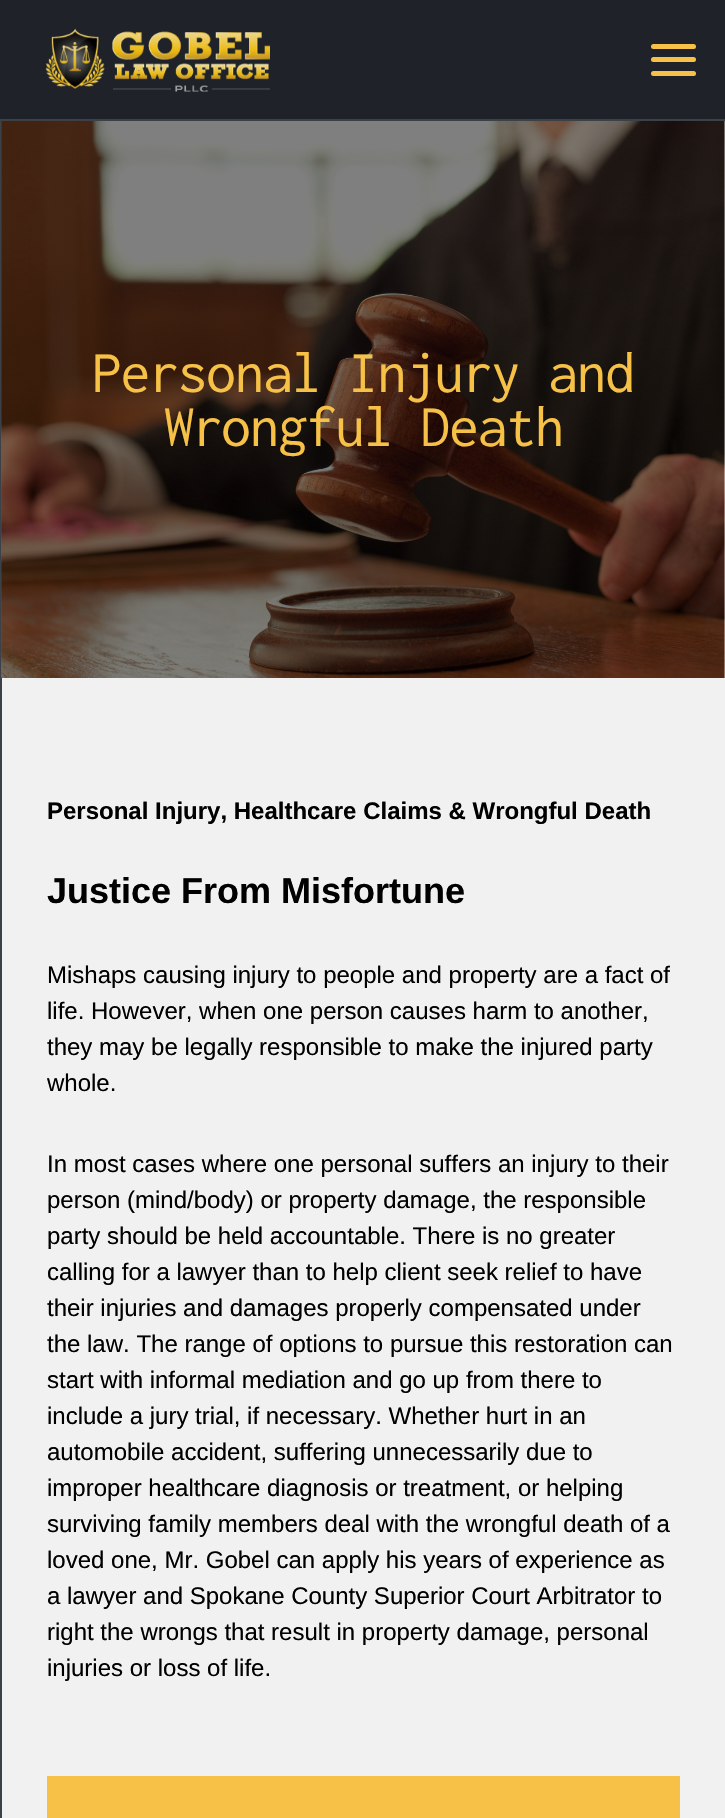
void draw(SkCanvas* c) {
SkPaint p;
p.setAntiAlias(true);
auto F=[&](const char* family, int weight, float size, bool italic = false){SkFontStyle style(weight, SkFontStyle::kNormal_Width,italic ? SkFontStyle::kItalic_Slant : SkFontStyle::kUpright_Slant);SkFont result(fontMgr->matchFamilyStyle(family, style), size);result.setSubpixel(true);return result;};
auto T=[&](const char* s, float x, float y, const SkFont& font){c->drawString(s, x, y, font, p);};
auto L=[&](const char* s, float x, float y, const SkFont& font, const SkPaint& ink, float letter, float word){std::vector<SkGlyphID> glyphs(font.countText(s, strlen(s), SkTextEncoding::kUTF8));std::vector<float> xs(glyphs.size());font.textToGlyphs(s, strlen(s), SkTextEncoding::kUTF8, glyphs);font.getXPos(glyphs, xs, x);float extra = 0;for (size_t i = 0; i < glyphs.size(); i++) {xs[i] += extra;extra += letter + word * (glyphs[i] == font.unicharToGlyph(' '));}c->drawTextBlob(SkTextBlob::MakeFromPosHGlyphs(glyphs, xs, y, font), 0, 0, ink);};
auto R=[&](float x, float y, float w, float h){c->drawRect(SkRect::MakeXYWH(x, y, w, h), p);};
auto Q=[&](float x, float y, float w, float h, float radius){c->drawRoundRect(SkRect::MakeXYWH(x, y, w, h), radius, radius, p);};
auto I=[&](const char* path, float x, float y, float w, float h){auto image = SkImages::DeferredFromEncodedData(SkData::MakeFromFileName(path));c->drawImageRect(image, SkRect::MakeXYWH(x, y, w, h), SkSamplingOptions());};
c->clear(0xff3b4147);
p.setColor(0xfff1f1f1);
R(2,121,723,1697);
p.setColor(0xff1f2329);
R(0,0,725,119);
I("1.png",45,28,225,64);
p.setColor(0xfff6c146);
Q(651,57,45,5,2.5);
Q(651,44,45,5,2.5);
Q(651,71,45,5,2.5);
I("2.png",1,121,724,557);
auto f1 = F("Inconsolata",400,60);
L("Personal Injury and",92,392,f1,p,-1.5,0);
L("Wrongful Death",164,446,f1,p,-1.5,0);
auto f2 = F("Liberation Sans",700,24);
p.setColor(0xff000000);
T("Personal Injury, Healthcare Claims & Wrongful Death",47,819,f2);
auto f3 = F("Liberation Sans",700,36);
T("Justice From Misfortune",47,903,f3);
auto f4 = F("Liberation Sans",400,24);
T("Mishaps causing injury to people and property are a fact of",47,983,f4);
T("life. However, when one person causes harm to another,",47,1019,f4);
T("they may be legally responsible to make the injured party",47,1055,f4);
T("whole.",47,1091,f4);
T("In most cases where one personal suffers an injury to their",47,1172,f4);
T("person (mind/body) or property damage, the responsible",47,1208,f4);
T("party should be held accountable. There is no greater",47,1244,f4);
T("calling for a lawyer than to help client seek relief to have",47,1280,f4);
T("their injuries and damages properly compensated under",47,1316,f4);
T("the law. The range of options to pursue this restoration can",47,1352,f4);
T("start with informal mediation and go up from there to",47,1388,f4);
T("include a jury trial, if necessary. Whether hurt in an",47,1424,f4);
T("automobile accident, suffering unnecessarily due to",47,1460,f4);
T("improper healthcare diagnosis or treatment, or helping",47,1496,f4);
T("surviving family members deal with the wrongful death of a",47,1532,f4);
T("loved one, Mr. Gobel can apply his years of experience as",47,1568,f4);
T("a lawyer and Spokane County Superior Court Arbitrator to",47,1604,f4);
T("right the wrongs that result in property damage, personal",47,1640,f4);
T("injuries or loss of life.",47,1676,f4);
p.setColor(0xfff6c146);
R(47,1776,633,42);
}
